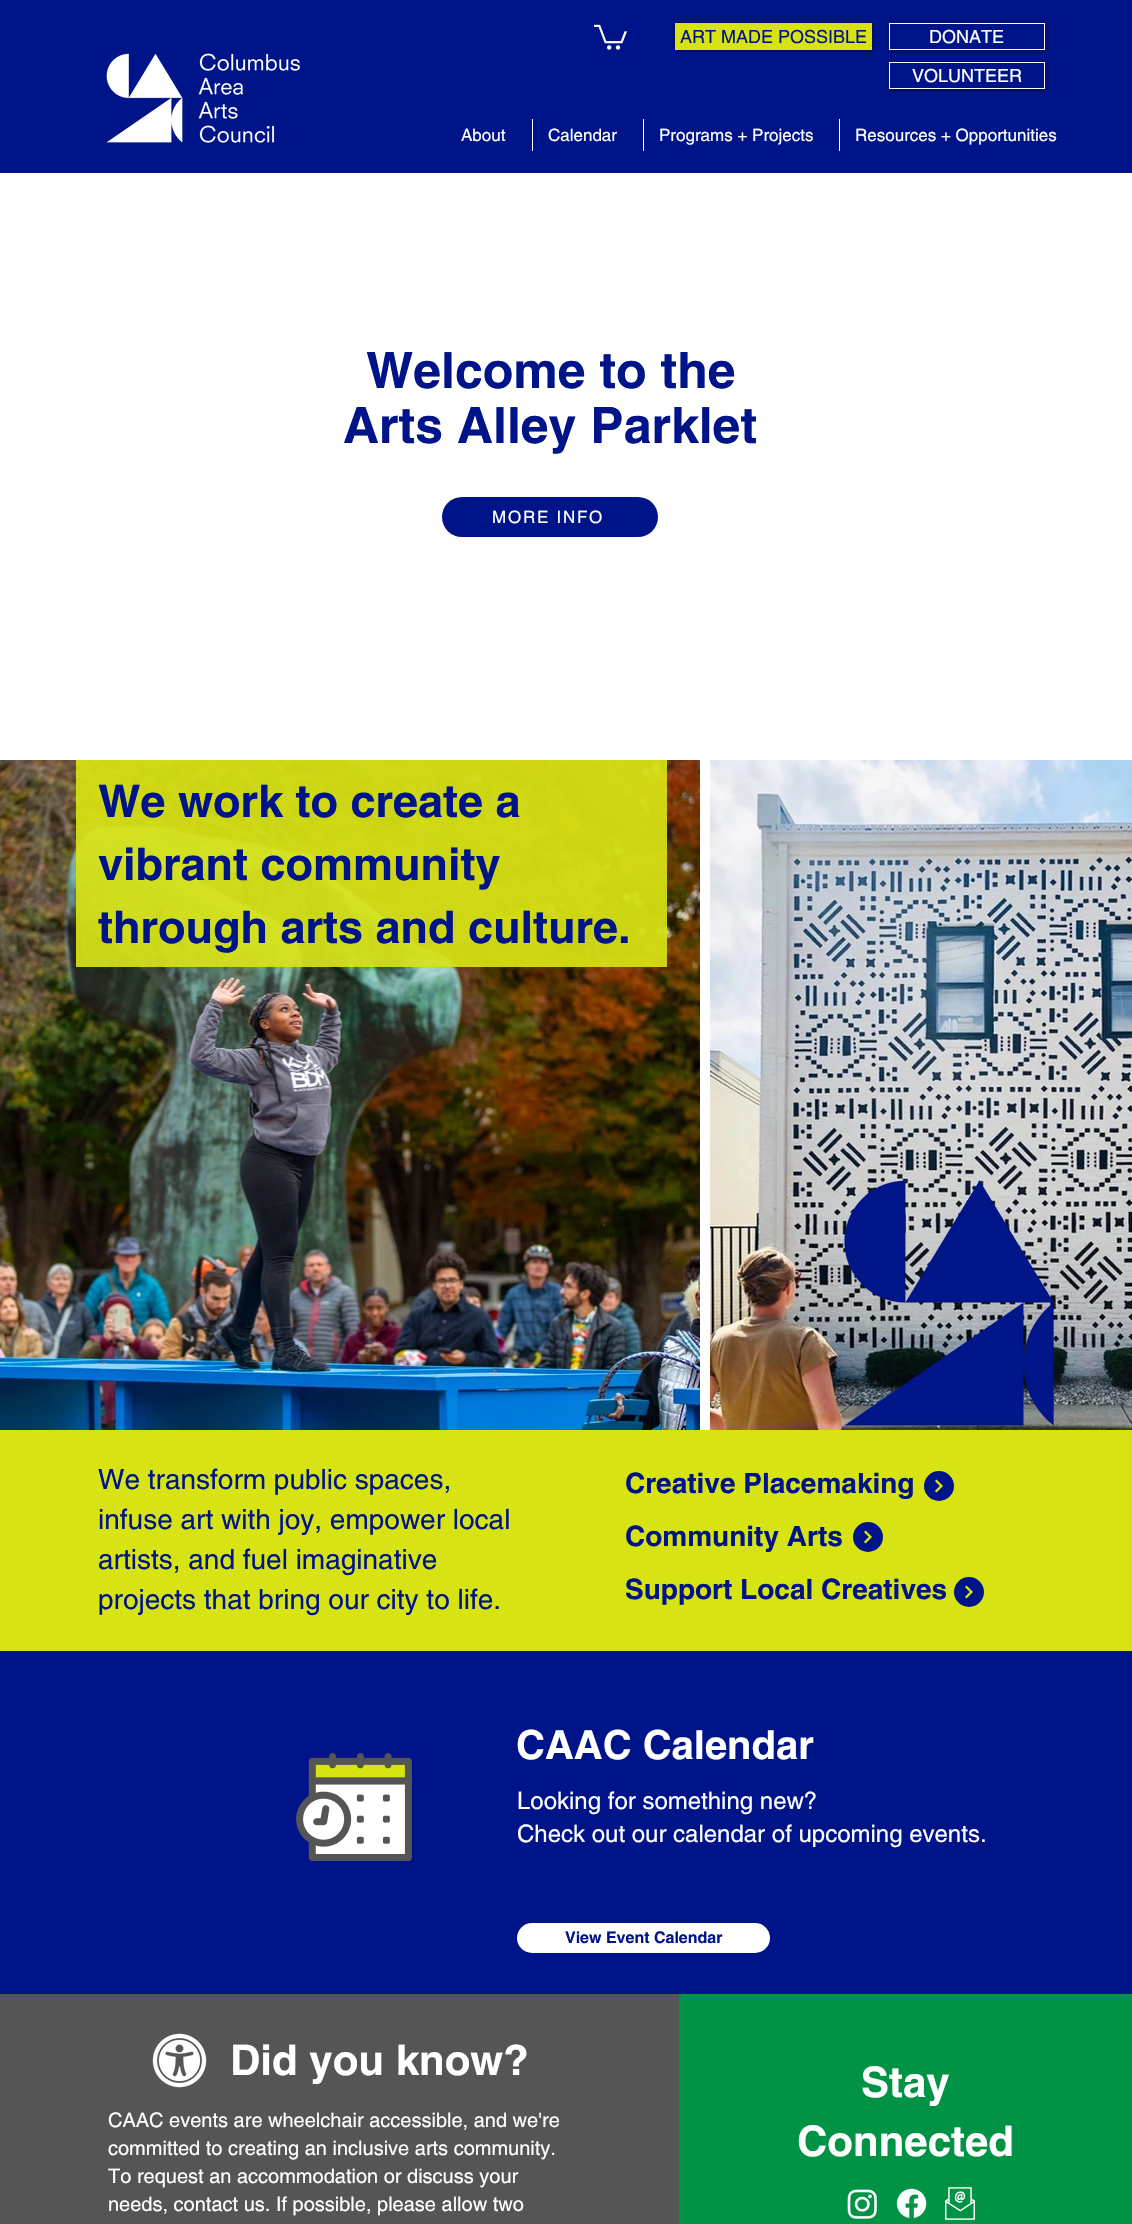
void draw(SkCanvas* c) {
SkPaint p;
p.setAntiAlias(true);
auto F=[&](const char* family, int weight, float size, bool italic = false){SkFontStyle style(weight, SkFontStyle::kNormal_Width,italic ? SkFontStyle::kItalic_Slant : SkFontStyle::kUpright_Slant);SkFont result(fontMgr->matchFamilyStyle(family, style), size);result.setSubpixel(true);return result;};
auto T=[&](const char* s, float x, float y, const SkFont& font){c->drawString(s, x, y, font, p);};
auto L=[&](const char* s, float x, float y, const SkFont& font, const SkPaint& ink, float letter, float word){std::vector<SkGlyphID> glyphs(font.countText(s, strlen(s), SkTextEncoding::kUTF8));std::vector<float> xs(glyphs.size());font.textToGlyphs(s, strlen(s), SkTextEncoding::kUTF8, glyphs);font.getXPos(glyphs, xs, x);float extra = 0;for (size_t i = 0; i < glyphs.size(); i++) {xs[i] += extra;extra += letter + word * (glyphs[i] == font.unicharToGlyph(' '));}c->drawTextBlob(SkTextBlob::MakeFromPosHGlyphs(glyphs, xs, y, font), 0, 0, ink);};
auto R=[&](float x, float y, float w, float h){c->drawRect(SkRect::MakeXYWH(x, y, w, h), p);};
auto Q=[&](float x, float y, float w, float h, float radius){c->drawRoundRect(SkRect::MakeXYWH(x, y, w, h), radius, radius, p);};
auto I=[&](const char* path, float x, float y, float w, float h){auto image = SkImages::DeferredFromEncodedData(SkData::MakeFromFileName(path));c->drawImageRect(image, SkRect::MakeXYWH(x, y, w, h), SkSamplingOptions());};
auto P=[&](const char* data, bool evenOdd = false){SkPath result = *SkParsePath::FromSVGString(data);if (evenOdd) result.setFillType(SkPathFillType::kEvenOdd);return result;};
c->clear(0xffffffff);
p.setColor(0xff001489);
R(0,0,1132,173);
I("1.png",106,53,194,90);
I("2.png",594,24,33,26);
p.setColor(0x99000000);
p.setMaskFilter(SkMaskFilter::MakeBlur(kNormal_SkBlurStyle, 2));
c->drawRect(SkRect::MakeXYWH(675,24,197,27),p);
p.setMaskFilter(nullptr);
p.setColor(0xffd8e314);
R(675,23,197,27);
auto f1 = F("helvetica",400,18);
p.setColor(0xff001489);
T("ART MADE POSSIBLE",680,43,f1);
c->save();
c->clipPath(P("M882 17h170v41h-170zm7 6h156v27h-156z",true),true);
p.setColor(0x99000000);
p.setMaskFilter(SkMaskFilter::MakeBlur(kNormal_SkBlurStyle, 2));
c->drawRect(SkRect::MakeXYWH(889,24,156,27),p);
p.setMaskFilter(nullptr);
c->restore();
p.setStroke(true);
p.setStrokeWidth(1);
p.setColor(0xffffffff);
c->drawRect(SkRect::MakeXYWH(889.5,23.5,155,26),p);
p.setStroke(false);
T("DONATE",929,43,f1);
c->save();
c->clipPath(P("M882 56h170v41h-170zm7 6h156v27h-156z",true),true);
p.setColor(0x99000000);
p.setMaskFilter(SkMaskFilter::MakeBlur(kNormal_SkBlurStyle, 2));
c->drawRect(SkRect::MakeXYWH(889,63,156,27),p);
p.setMaskFilter(nullptr);
c->restore();
p.setStroke(true);
p.setColor(0xffffffff);
c->drawRect(SkRect::MakeXYWH(889.5,62.5,155,26),p);
p.setStroke(false);
T("VOLUNTEER",912,82,f1);
auto f2 = F("helvetica",400,17);
T("About",461,141,f2);
R(532,119,1,32);
T("Calendar",548,141,f2);
R(643,119,1,32);
T("Programs + Projects",659,141,f2);
R(839,119,1,32);
T("Resources + Opportunities",855,141,f2);
auto f3 = F("helvetica",700,50);
p.setColor(0xff001489);
T("Welcome to the",366,388,f3);
T("Arts Alley Parklet",343,443,f3);
Q(442,497,216,40,20);
p.setColor(0xffffffff);
L("MORE INFO",492,523,f2,p,1.75,0);
I("3.png",0,760,700,670);
I("4.png",710,760,422,670);
p.setColor(0xebd8e314);
R(76,760,591,207);
auto f4 = F("helvetica",700,45);
p.setColor(0xff001489);
T("We work to create a",98,817,f4);
T("vibrant community",98,880,f4);
T("through arts and culture.",98,943,f4);
I("5.png",844,1180,210,246);
p.setColor(0xffd8e314);
R(0,1430,1132,221);
auto f5 = F("helvetica",400,28);
p.setColor(0xff001489);
T("We transform public spaces,",98,1489,f5);
T("infuse art with joy, empower local",98,1529,f5);
T("artists, and fuel imaginative",98,1569,f5);
T("projects that bring our city to life.",98,1609,f5);
c->drawCircle(939,1486,15,p);
I("6.png",935,1479,8,14);
auto f6 = F("helvetica",700,28);
T("Creative Placemaking",625,1493,f6);
T("Community Arts",625,1546,f6);
T("Support Local Creatives",625,1599,f6);
c->drawCircle(868,1537,15,p);
I("6.png",864,1530,8,14);
c->drawCircle(969,1592,15,p);
I("6.png",965,1585,8,14);
R(0,1651,1132,343);
auto f7 = F("helvetica",700,40);
p.setColor(0xffffffff);
T("CAAC Calendar",516,1759,f7);
I("7.png",296,1753,116,108);
auto f8 = F("helvetica",400,24);
T("Looking for something new?",517,1809,f8);
T("Check out our calendar of upcoming events.",517,1842,f8);
Q(517,1923,253,30,15);
auto f9 = F("helvetica",700,16);
p.setColor(0xff001489);
T("View Event Calendar",565,1943,f9);
p.setColor(0xff555555);
R(0,1994,679,230);
I("8.png",152,2033,55,55);
auto f10 = F("helvetica",700,42);
p.setColor(0xffffffff);
T("Did you know?",230,2075,f10);
auto f11 = F("helvetica",400,20);
T("CAAC events are wheelchair accessible, and we're",108,2127,f11);
T("committed to creating an inclusive arts community.",108,2155,f11);
T("To request an accommodation or discuss your",108,2183,f11);
T("needs, contact us. If possible, please allow two",108,2211,f11);
p.setColor(0xff009245);
R(679,1994,453,230);
p.setColor(0xffffffff);
T("Stay",861,2097,f10);
T("Connected",797,2156,f10);
I("9.png",847,2189,30,30);
I("10.png",896,2188,31,30);
I("11.png",945,2187,30,33);
}
